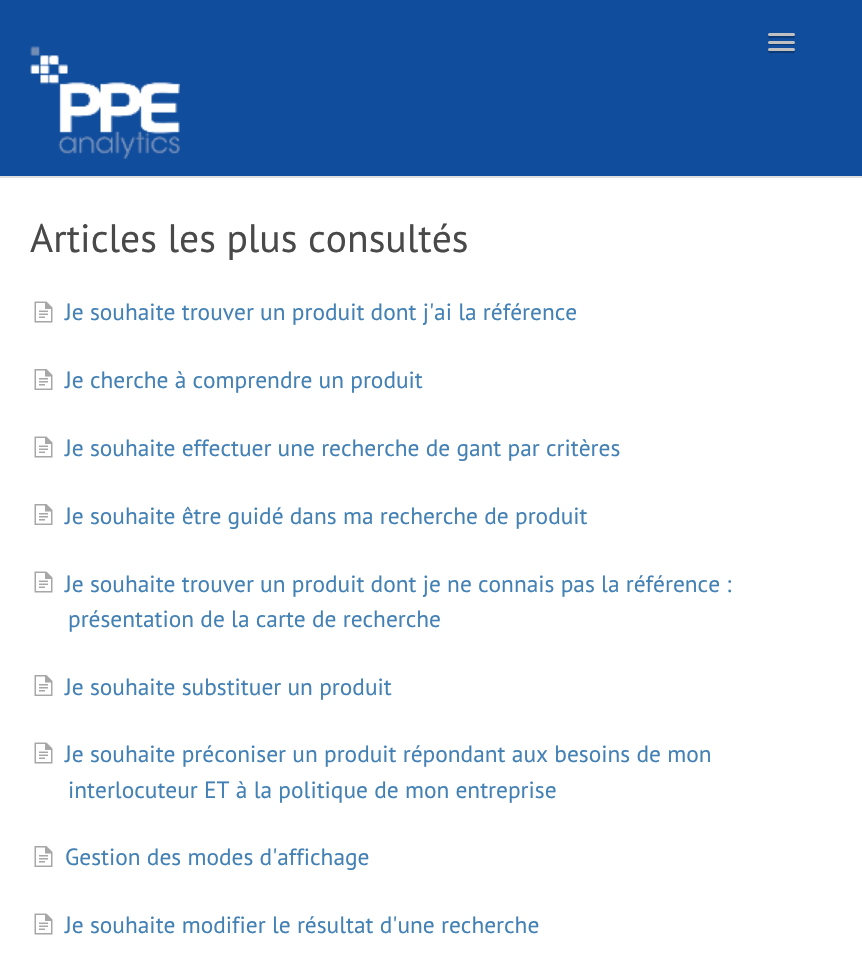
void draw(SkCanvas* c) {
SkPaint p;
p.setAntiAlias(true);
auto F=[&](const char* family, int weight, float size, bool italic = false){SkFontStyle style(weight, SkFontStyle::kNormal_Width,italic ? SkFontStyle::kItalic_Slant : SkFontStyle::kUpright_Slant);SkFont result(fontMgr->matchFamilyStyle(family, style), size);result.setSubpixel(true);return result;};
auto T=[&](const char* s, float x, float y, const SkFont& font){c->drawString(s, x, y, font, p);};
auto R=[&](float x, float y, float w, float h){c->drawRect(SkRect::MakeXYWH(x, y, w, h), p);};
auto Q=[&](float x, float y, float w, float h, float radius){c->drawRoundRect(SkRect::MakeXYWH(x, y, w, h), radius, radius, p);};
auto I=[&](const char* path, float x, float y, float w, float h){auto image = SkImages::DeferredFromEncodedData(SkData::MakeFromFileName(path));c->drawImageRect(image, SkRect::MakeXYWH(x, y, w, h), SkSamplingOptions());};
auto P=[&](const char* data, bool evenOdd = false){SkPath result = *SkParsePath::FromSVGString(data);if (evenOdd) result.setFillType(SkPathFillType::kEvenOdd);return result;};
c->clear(0xff104d9d);
p.setColor(0xff0c3a76);
c->drawPath(P("M768.5 35.5l-.5 1.5c.5 2 5 1 5.5 1h16c.5 0 5 1 5.5-1l-.5-1.5l-1 .5h-24z"),p);
p.setColor(0xffc0c0c0);
Q(768,33,27,3,1.5);
p.setColor(0xff0c3a76);
c->drawPath(P("M768 42.5c-1.5 3.5 5.5 2.5 5.5 2.5h16c0 0 7 1 5.5-2.5c-.5 .5-1 1-1.5 1h-24c-.5 0-1-.5-1.5-1z"),p);
p.setColor(0xffc0c0c0);
Q(768,41,27,3,1.5);
p.setColor(0xff0c3a76);
c->drawPath(P("M768.5 50.5l-.5 1.5c.5 2 5 1 5.5 1h16c.5 0 5 1 5.5-1l-.5-1.5l-1 .5h-24z"),p);
p.setColor(0xffc0c0c0);
Q(768,48,27,3,1.5);
I("1.png",30,46,150,113);
p.setColor(0xffffffff);
R(0,178,862,798);
p.setColor(0xffdedede);
R(0,176,862,2);
auto f1 = F("PT Sans",400,39.6);
p.setColor(0xff494949);
T("Articles les plus consultés",30,252,f1);
I("2.png",34,301,19,22);
auto f2 = F("PT Sans",400,23.4);
p.setColor(0xff4381b5);
T("Je souhaite trouver un produit dont j'ai la référence",65,320,f2);
I("3.png",34,369,19,21);
T("Je cherche à comprendre un produit",65,388,f2);
I("2.png",34,436,19,22);
T("Je souhaite effectuer une recherche de gant par critères",65,456,f2);
I("3.png",34,504,19,21);
T("Je souhaite être guidé dans ma recherche de produit",65,524,f2);
I("2.png",34,571,19,22);
T("Je souhaite trouver un produit dont je ne connais pas la référence :",65,592,f2);
T("présentation de la carte de recherche",68,627,f2);
I("3.png",34,675,19,21);
T("Je souhaite substituer un produit",65,695,f2);
I("2.png",34,742,19,22);
T("Je souhaite préconiser un produit répondant aux besoins de mon",65,762,f2);
T("interlocuteur ET à la politique de mon entreprise",68,798,f2);
I("3.png",34,846,19,21);
T("Gestion des modes d'affichage",65,865,f2);
I("2.png",34,913,19,22);
T("Je souhaite modifier le résultat d'une recherche",65,933,f2);
}
